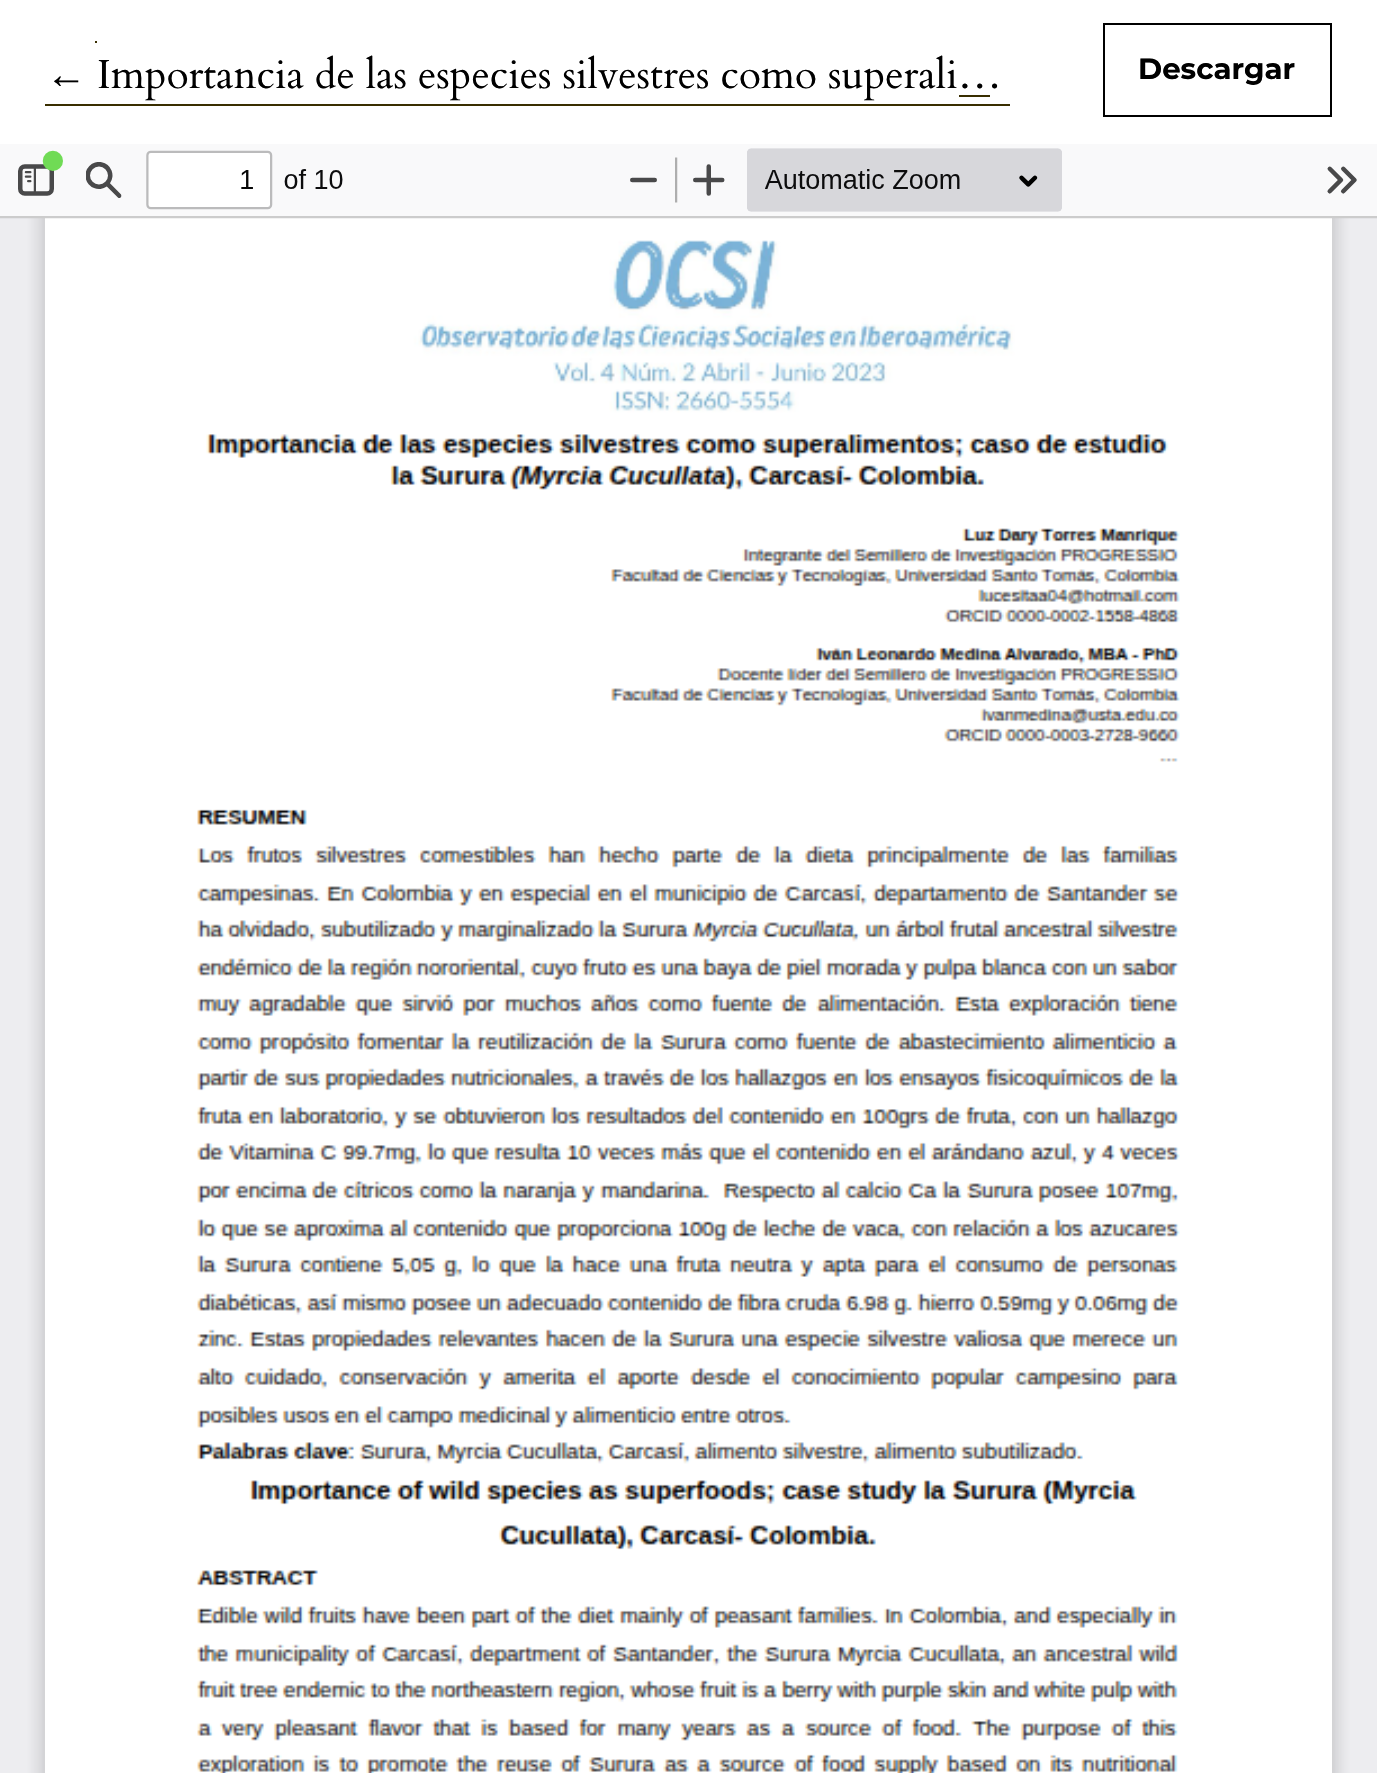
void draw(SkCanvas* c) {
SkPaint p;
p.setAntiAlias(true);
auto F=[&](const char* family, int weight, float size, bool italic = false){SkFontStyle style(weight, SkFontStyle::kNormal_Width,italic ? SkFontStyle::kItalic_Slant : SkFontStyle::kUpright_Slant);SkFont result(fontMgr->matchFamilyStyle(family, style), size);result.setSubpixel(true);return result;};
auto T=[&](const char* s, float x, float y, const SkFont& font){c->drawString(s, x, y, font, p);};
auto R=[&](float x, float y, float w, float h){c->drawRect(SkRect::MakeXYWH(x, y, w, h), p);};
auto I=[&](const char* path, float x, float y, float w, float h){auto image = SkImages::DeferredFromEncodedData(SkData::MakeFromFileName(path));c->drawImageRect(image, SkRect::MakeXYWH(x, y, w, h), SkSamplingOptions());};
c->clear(0xffffffff);
auto f1 = F("Liberation Serif",400,40.5);
p.setColor(0xff000000);
T("←",46,88,f1);
p.setColor(0xff392e00);
R(45,104,965,2);
R(959,95,31,2);
auto f2 = F("Cardo",400,40.5);
p.setColor(0xff000000);
T("Importancia de las especies silvestres como superali…",97,88,f2);
p.setColor(0xff392e00);
R(95,41,2,2);
p.setStroke(true);
p.setStrokeWidth(2);
p.setColor(0xff000000);
c->drawRect(SkRect::MakeXYWH(1104,24,227,92),p);
auto f3 = F("Montserrat",700,29.25);
p.setStroke(false);
T("Descargar",1138,79,f3);
I("1.png",0,144,1377,1629);
}
